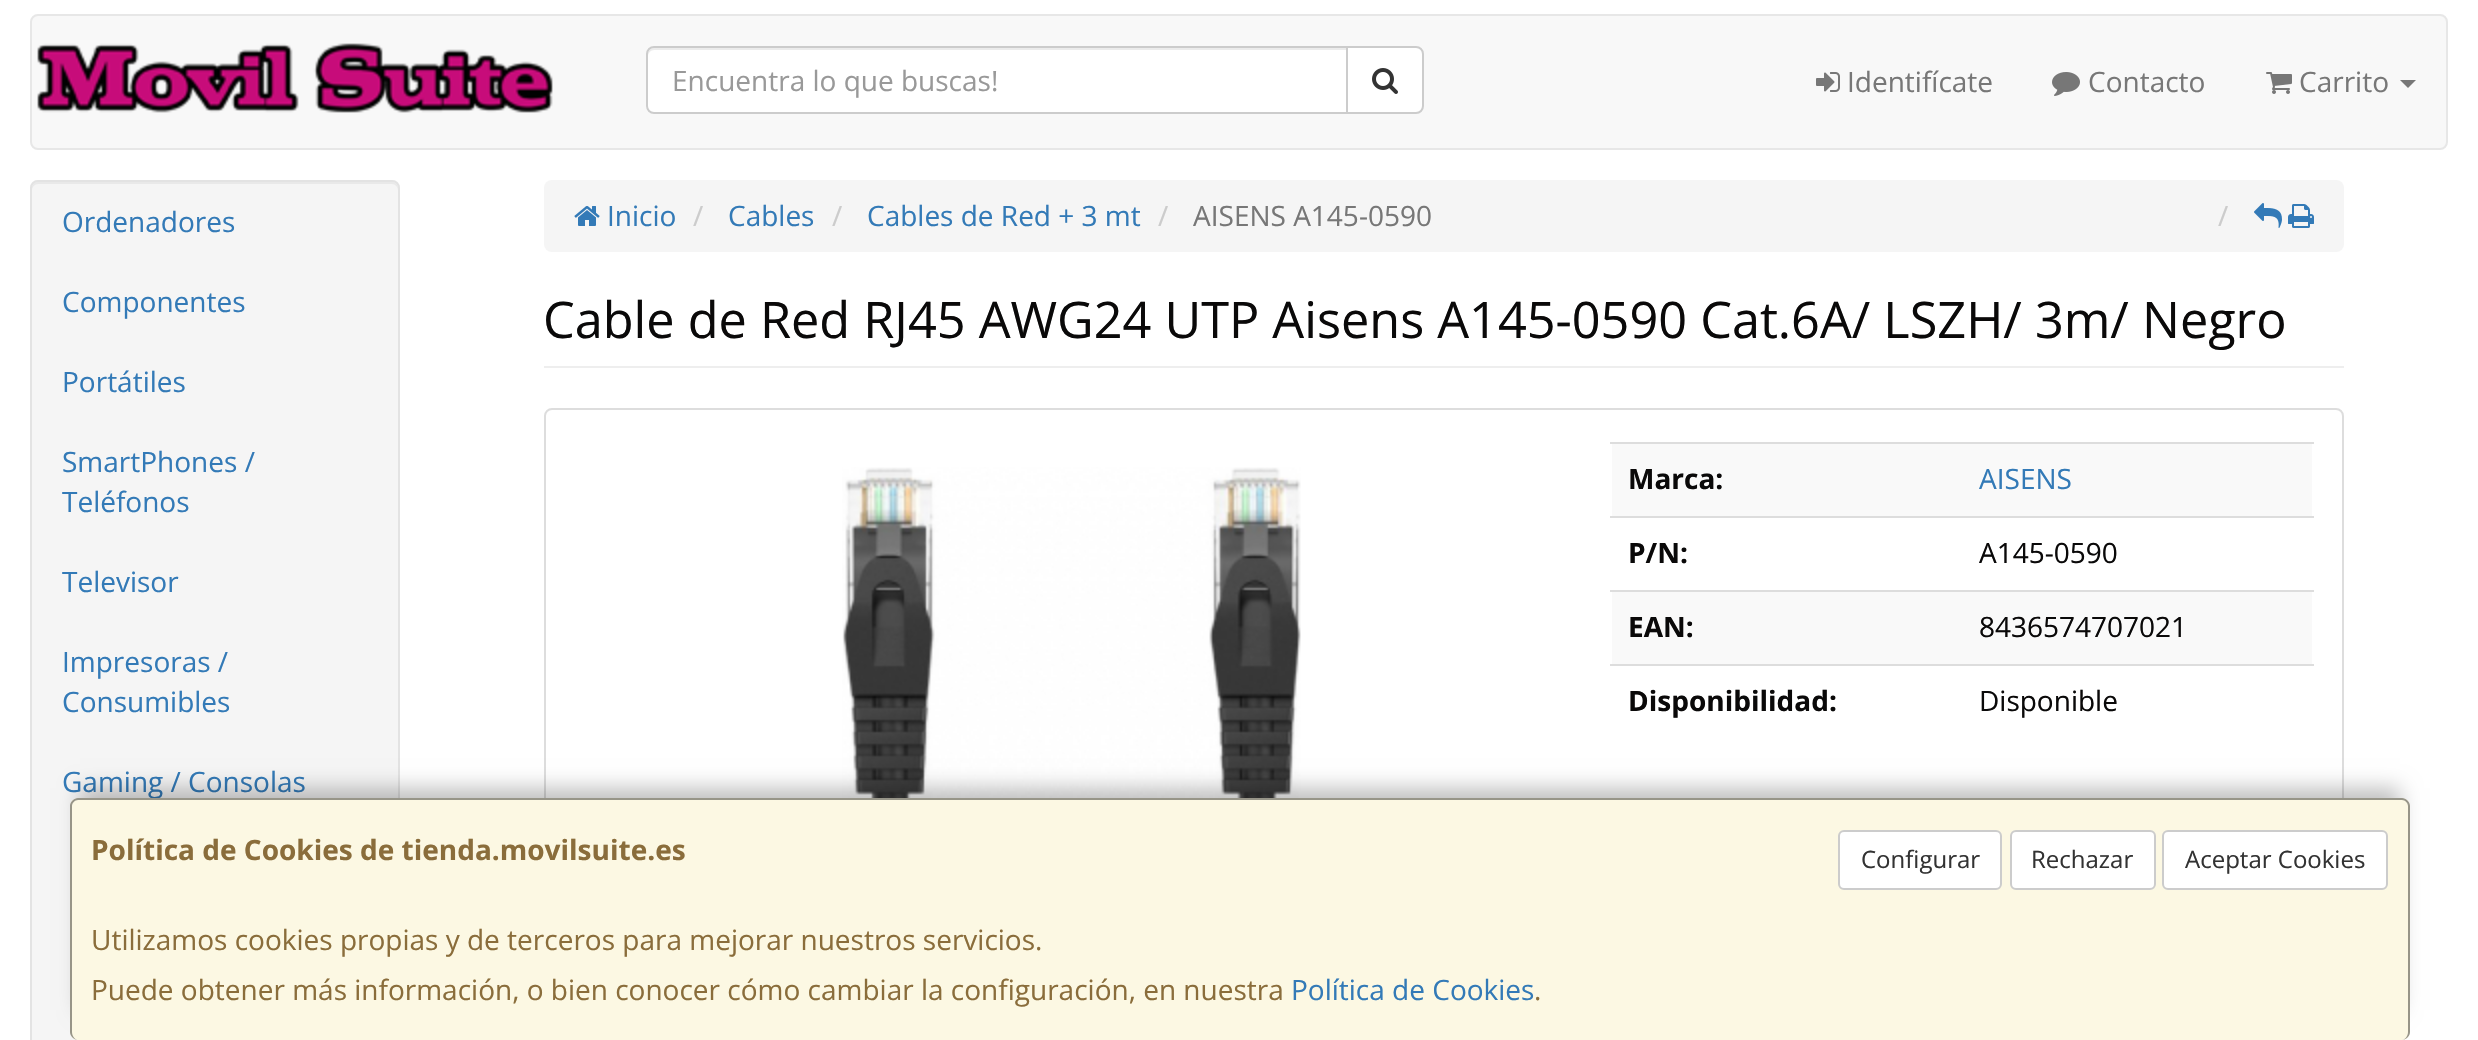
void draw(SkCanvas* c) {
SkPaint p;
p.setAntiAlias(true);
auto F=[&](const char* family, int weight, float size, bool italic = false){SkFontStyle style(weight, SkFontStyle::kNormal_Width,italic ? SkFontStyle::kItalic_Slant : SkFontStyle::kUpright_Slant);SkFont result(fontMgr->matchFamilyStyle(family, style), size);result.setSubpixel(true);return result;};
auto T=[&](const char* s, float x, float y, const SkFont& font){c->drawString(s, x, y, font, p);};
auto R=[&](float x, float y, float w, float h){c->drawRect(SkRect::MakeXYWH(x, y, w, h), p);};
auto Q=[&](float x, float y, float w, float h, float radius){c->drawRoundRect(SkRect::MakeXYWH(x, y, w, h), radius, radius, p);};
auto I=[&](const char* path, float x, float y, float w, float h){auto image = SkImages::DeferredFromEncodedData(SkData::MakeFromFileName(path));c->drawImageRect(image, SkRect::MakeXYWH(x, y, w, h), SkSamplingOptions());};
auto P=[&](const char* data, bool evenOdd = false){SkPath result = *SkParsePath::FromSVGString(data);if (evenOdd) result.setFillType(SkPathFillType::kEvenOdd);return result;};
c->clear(0xffffffff);
p.setColor(0xfff8f8f8);
c->drawRoundRect(SkRect::MakeXYWH(31,15,2416,134),7,7,p);
p.setStroke(true);
p.setStrokeWidth(2);
p.setColor(0xffe7e7e7);
c->drawRoundRect(SkRect::MakeXYWH(31,15,2416,134),7,7,p);
I("1.png",37,43,516,70);
p.setStroke(false);
p.setColor(0xffffffff);
c->drawPath(P("M1347 47h69c4 0 7 3 7 7v52c0 4-3 7-7 7h-69z"),p);
p.setStroke(true);
p.setColor(0xffcccccc);
c->drawPath(P("M1347 47h69c4 0 7 3 7 7v52c0 4-3 7-7 7h-69z"),p);
p.setStroke(false);
p.setColor(0xffffffff);
c->drawPath(P("M654 46h694v68h-694c-4.5 0-8-3.5-8-8v-52c0-4.5 3.5-8 8-8z"),p);
p.setColor(0xffececec);
c->drawPath(P("M654 50h692v-2h-692c-3 0-6 3-6 6v2c0-3 3-6 6-6z"),p);
p.setStroke(true);
p.setColor(0xffcccccc);
c->drawPath(P("M654 47h693v66h-693c-4 0-7-3-7-7v-52c0-4 3-7 7-7z"),p);
auto f1 = F("Open Sans",400,28);
p.setStroke(false);
p.setColor(0xff999999);
T("Encuentra lo que buscas!",672,91,f1);
I("2.png",1372,68,26,26);
I("3.png",1816,72,24,20);
p.setColor(0xff777777);
T("Identifícate",1847,92,f1);
I("4.png",2052,72,28,24);
T("Contacto",2088,92,f1);
I("5.png",2266,72,26,22);
T("Carrito",2299,92,f1);
c->drawPath(P("M2400 80h16l-8 8z"),p);
p.setColor(0xfff5f5f5);
Q(30,180,370,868,8);
p.setColor(0xffe9e9e9);
c->drawPath(P("M38 184h354c3 0 6 3 6 6v-2c0-3-3-6-6-6h-354c-3 0-6 3-6 6v2c0-3 3-6 6-6z"),p);
p.setStroke(true);
p.setColor(0xffe3e3e3);
c->drawRoundRect(SkRect::MakeXYWH(31,181,368,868),7,7,p);
p.setStroke(false);
p.setColor(0xff337ab7);
T("Ordenadores",62,232,f1);
T("Componentes",62,312,f1);
T("Portátiles",62,392,f1);
T("SmartPhones /",62,472,f1);
T("Teléfonos",62,512,f1);
T("Televisor",62,592,f1);
T("Impresoras /",62,672,f1);
T("Consumibles",62,712,f1);
T("Gaming / Consolas",62,792,f1);
p.setColor(0xfff5f5f5);
Q(544,180,1800,72,8);
I("6.png",574,206,26,20);
p.setColor(0xff337ab7);
T("Inicio",607,226,f1);
p.setColor(0xffcccccc);
T("/",693,226,f1);
p.setColor(0xff337ab7);
T("Cables",728,226,f1);
p.setColor(0xffcccccc);
T("/",832,226,f1);
p.setColor(0xff337ab7);
T("Cables de Red + 3 mt",867,226,f1);
p.setColor(0xffcccccc);
T("/",1158,226,f1);
p.setColor(0xff777777);
T("AISENS A145-0590",1193,226,f1);
p.setColor(0xffcccccc);
T("/",2218,226,f1);
I("7.png",2254,203,28,25);
I("8.png",2288,204,26,24);
p.setColor(0xffeeeeee);
R(544,366,1800,2);
auto f2 = F("Open Sans",400,50.4);
p.setColor(0xff0a0909);
T("Cable de Red RJ45 AWG24 UTP Aisens A145-0590 Cat.6A/ LSZH/ 3m/ Negro",543,338,f2);
p.setStroke(true);
p.setColor(0xffdddddd);
c->drawRoundRect(SkRect::MakeXYWH(545,409,1798,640),7,7,p);
I("9.png",842,467,459,331);
p.setStroke(false);
p.setColor(0xfff9f9f9);
R(1612,444,700,72);
auto f3 = F("Open Sans",700,28);
p.setColor(0xff0a0909);
T("Marca:",1628,489,f3);
p.setColor(0xffdddddd);
R(1610,442,704,2);
p.setColor(0xff337ab7);
T("AISENS",1979,489,f1);
p.setColor(0xff0a0909);
T("P/N:",1628,563,f3);
p.setColor(0xffdddddd);
R(1610,516,704,2);
p.setColor(0xff0a0909);
T("A145-0590",1979,563,f1);
p.setColor(0xfff9f9f9);
R(1612,592,700,72);
p.setColor(0xff0a0909);
T("EAN:",1628,637,f3);
p.setColor(0xffdddddd);
R(1610,590,704,2);
p.setColor(0xff0a0909);
T("8436574707021",1979,637,f1);
T("Disponibilidad:",1628,711,f3);
p.setColor(0xffdddddd);
R(1610,664,704,2);
p.setColor(0xff0a0909);
T("Disponible",1979,711,f1);
p.setColor(0x40000000);
p.setMaskFilter(SkMaskFilter::MakeBlur(kNormal_SkBlurStyle, 10));
c->drawRect(SkRect::MakeXYWH(80,788,2320,222),p);
p.setMaskFilter(nullptr);
p.setColor(0xfffcf8e3);
Q(70,798,2340,242,8);
p.setColor(0x66000000);
c->drawPath(P("M78 798h2324c4 0 8 4 8 8v226c0 4-4 8-8 8h-2324c-4 0-8-4-8-8v-226c0-4 4-8 8-8zm0 2h2324c3 0 6 3 6 6v226c0 4-3 8-6 8h-2324c-3 0-6-4-6-8v-226c0-3 3-6 6-6z",true),p);
p.setColor(0xff8a6d3b);
T("Política de Cookies de tienda.movilsuite.es",91,860,f3);
p.setColor(0xffffffff);
c->drawRoundRect(SkRect::MakeXYWH(1839,831,162,58),5,5,p);
p.setStroke(true);
p.setColor(0xffcccccc);
c->drawRoundRect(SkRect::MakeXYWH(1839,831,162,58),5,5,p);
auto f4 = F("Open Sans",400,24);
p.setStroke(false);
p.setColor(0xff333333);
T("Configurar",1861,868,f4);
p.setColor(0xffffffff);
c->drawRoundRect(SkRect::MakeXYWH(2011,831,144,58),5,5,p);
p.setStroke(true);
p.setColor(0xffcccccc);
c->drawRoundRect(SkRect::MakeXYWH(2011,831,144,58),5,5,p);
p.setStroke(false);
p.setColor(0xff333333);
T("Rechazar",2031,868,f4);
p.setColor(0xffffffff);
c->drawRoundRect(SkRect::MakeXYWH(2163,831,224,58),5,5,p);
p.setStroke(true);
p.setColor(0xffcccccc);
c->drawRoundRect(SkRect::MakeXYWH(2163,831,224,58),5,5,p);
p.setStroke(false);
p.setColor(0xff333333);
T("Aceptar Cookies",2185,868,f4);
p.setColor(0xff8a6d3b);
T("Utilizamos cookies propias y de terceros para mejorar nuestros servicios.",91,950,f1);
T("Puede obtener más información, o bien conocer cómo cambiar la configuración, en nuestra",91,1000,f1);
p.setColor(0xff337ab7);
T("Política de Cookies",1291,1000,f1);
p.setColor(0xff8a6d3b);
T(".",1534,1000,f1);
}
